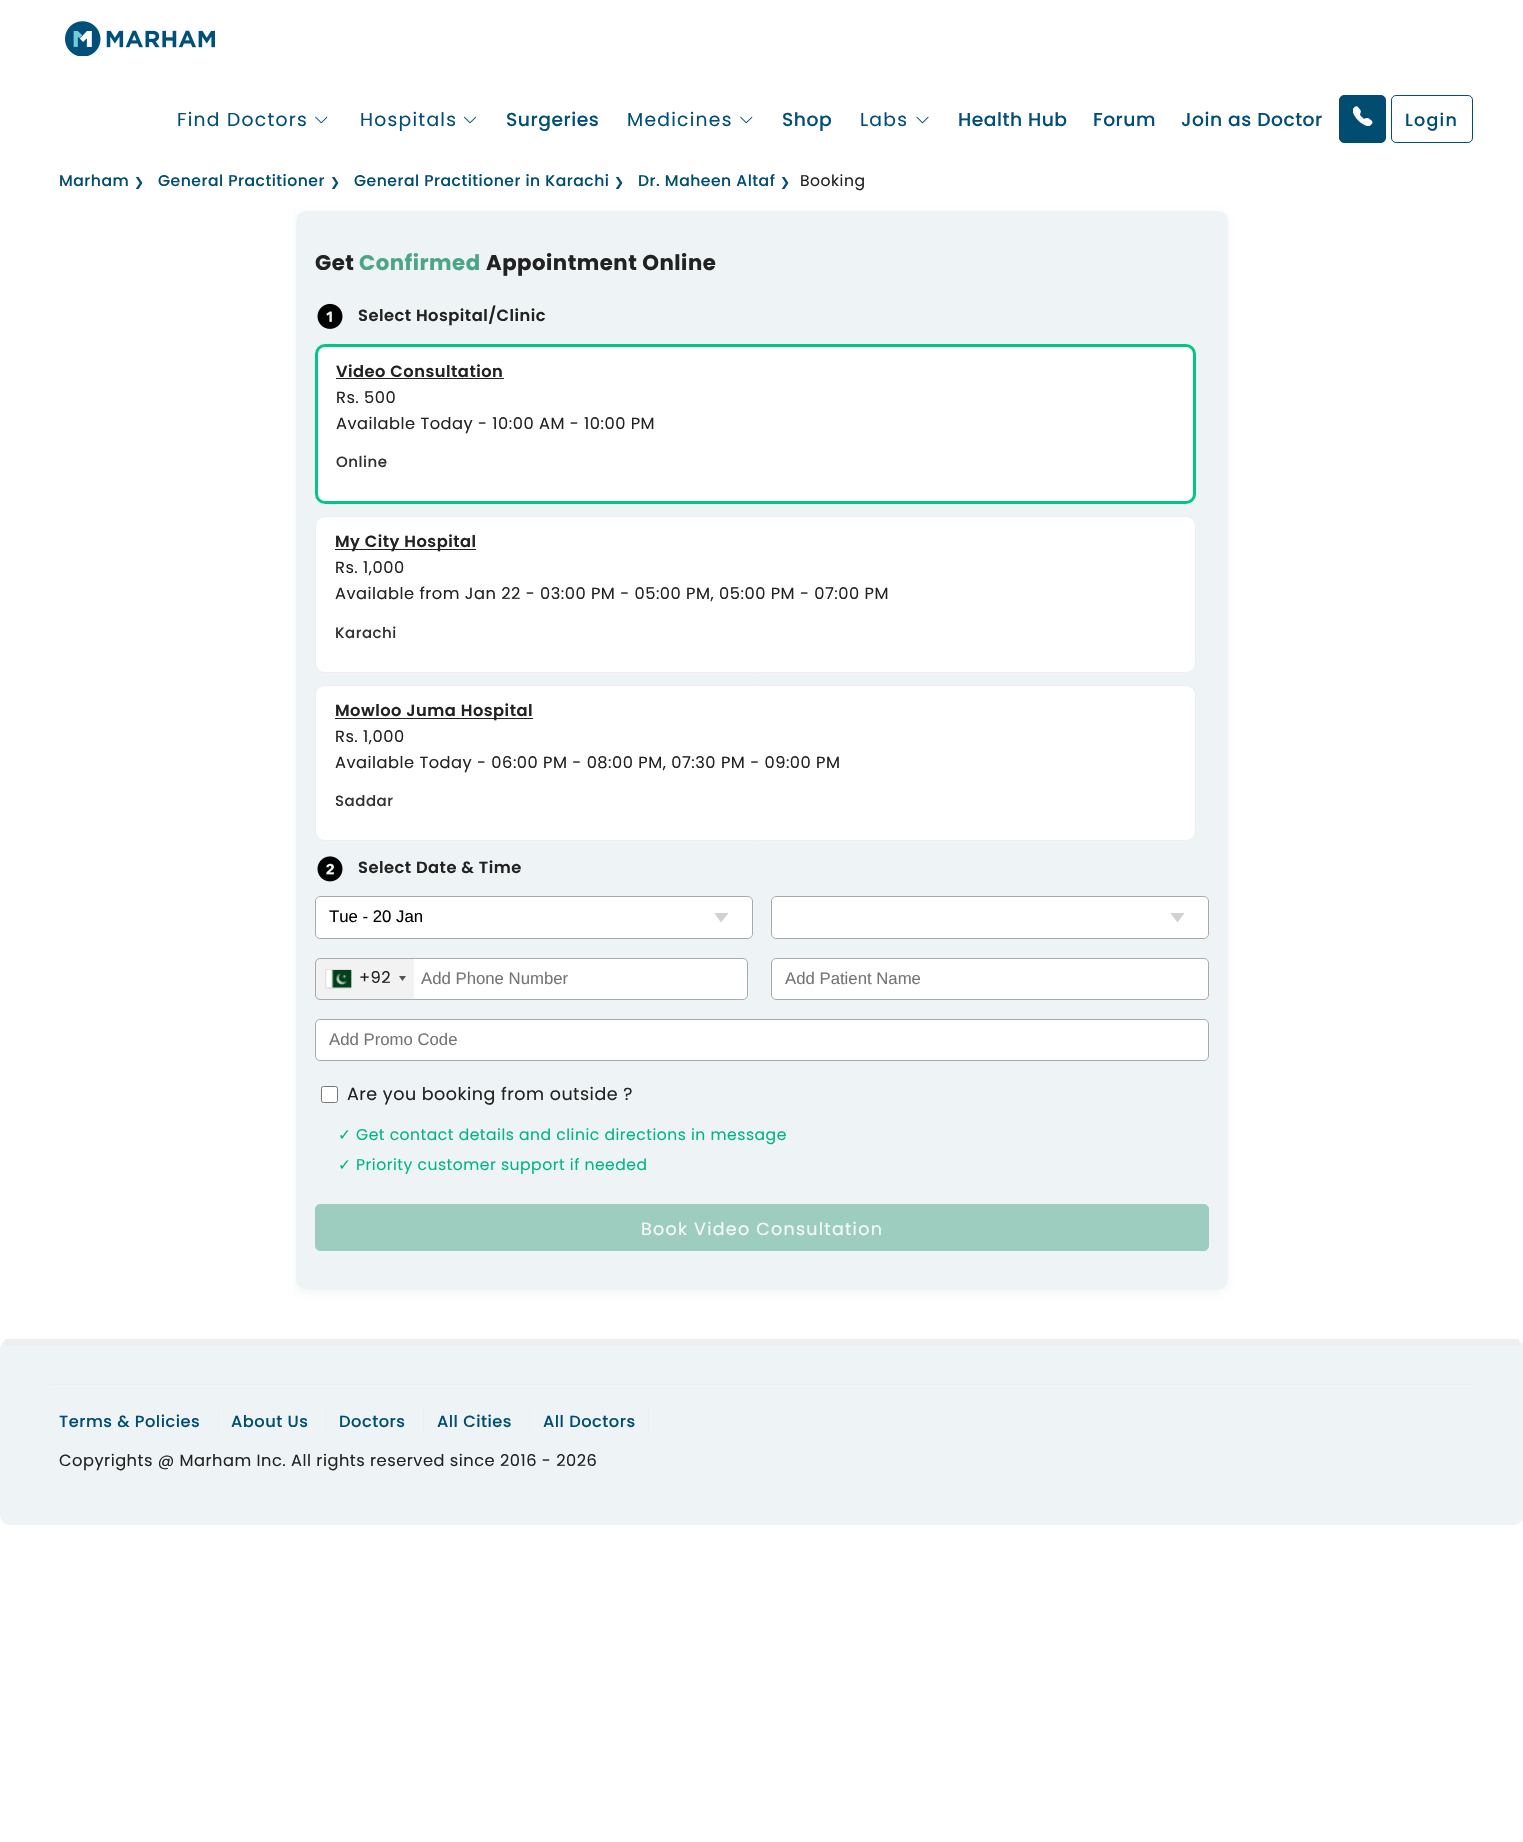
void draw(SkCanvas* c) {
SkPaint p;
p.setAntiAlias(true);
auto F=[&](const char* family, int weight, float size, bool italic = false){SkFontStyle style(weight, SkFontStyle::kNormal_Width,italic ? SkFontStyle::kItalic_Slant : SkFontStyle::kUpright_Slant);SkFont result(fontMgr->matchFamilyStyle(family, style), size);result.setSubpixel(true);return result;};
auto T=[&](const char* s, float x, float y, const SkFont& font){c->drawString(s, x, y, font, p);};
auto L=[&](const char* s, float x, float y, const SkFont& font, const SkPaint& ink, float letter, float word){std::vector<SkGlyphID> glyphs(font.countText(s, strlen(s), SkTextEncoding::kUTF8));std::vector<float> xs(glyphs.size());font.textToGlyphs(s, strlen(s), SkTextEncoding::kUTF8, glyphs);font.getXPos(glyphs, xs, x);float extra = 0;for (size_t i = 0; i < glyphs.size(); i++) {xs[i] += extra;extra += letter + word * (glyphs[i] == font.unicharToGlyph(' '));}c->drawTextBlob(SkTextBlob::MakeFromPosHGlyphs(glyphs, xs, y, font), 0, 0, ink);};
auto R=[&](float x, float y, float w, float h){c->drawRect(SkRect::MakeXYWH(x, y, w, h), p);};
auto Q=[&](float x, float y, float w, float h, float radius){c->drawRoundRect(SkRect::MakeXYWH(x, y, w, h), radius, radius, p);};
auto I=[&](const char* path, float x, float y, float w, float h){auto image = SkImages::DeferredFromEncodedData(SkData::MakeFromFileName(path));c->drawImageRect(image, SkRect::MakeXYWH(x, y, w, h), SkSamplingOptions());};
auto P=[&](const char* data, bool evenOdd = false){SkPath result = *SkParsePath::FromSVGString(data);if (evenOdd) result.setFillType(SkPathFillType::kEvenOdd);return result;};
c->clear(0xffffffff);
I("1.png",65,21,150,35);
auto f1 = F("Poppins",400,18.75);
p.setColor(0xff014e78);
L("Find Doctors",177,126,f1,p,1.25,0);
I("2.png",315,116,13,8);
L("Hospitals",360,126,f1,p,1.25,0);
I("3.png",464,116,12,8);
auto f2 = F("Poppins",500,18.75);
L("Surgeries",506,126,f2,p,.5,0);
L("Medicines",627,126,f1,p,1.25,0);
I("2.png",740,116,13,8);
L("Shop",782,126,f2,p,.5,0);
L("Labs",860,126,f1,p,1.25,0);
I("4.png",916,116,13,8);
L("Health Hub",958,126,f2,p,.5,0);
L("Forum",1093,126,f2,p,.5,0);
L("Join as Doctor",1181,126,f2,p,.5,0);
p.setColor(0xff004d71);
c->drawRoundRect(SkRect::MakeXYWH(1339.5,95.5,46,47),4.5,4.5,p);
p.setStroke(true);
p.setStrokeWidth(1);
c->drawRoundRect(SkRect::MakeXYWH(1339.5,95.5,46,47),4.5,4.5,p);
I("5.png",1353,106,20,20);
p.setColor(0xff014e78);
c->drawRoundRect(SkRect::MakeXYWH(1391.5,95.5,81,47),4.5,4.5,p);
auto f3 = F("Poppins",500,17.5);
p.setStroke(false);
p.setColor(0xff004d71);
L("Login",1405,126,f3,p,1.25,0);
auto f4 = F("Poppins",500,15.6);
L("Marham",59,186,f4,p,.5,0);
auto f5 = F("DejaVu Sans",400,12);
p.setColor(0xff014e78);
L("❯",134,186,f5,p,.5,0);
p.setColor(0xff004d71);
L("General Practitioner",158,186,f4,p,.5,0);
p.setColor(0xff014e78);
L("❯",330,186,f5,p,.5,0);
p.setColor(0xff004d71);
L("General Practitioner in Karachi",354,186,f4,p,.5,0);
p.setColor(0xff014e78);
L("❯",614,186,f5,p,.5,0);
p.setColor(0xff004d71);
L("Dr. Maheen Altaf",638,186,f4,p,.5,0);
p.setColor(0xff014e78);
L("❯",780,186,f5,p,.5,0);
auto f6 = F("Poppins",400,15.6);
p.setColor(0xff222222);
L("Booking",800,186,f6,p,.5,0);
p.setColor(0x0f000000);
p.setMaskFilter(SkMaskFilter::MakeBlur(kNormal_SkBlurStyle, 4.5));
c->drawRoundRect(SkRect::MakeXYWH(298,215,928,1076),9,9,p);
p.setMaskFilter(nullptr);
p.setColor(0xffeef4f6);
Q(296,211,932,1078,10);
auto f7 = F("Poppins",700,21.25);
p.setColor(0xff222222);
L("Get",315,270,f7,p,.5,0);
p.setColor(0xff4ca585);
L("Confirmed",359,270,f7,p,.5,0);
p.setColor(0xff222222);
L("Appointment Online",486,270,f7,p,.5,0);
I("6.png",317,303,26,26);
auto f8 = F("Poppins",600,16.25);
L("Select Hospital/Clinic",358,321,f8,p,.5,0);
p.setColor(0xffffffff);
c->drawRoundRect(SkRect::MakeXYWH(316.5,345.5,878,157),8.5,8.5,p);
p.setStroke(true);
p.setStrokeWidth(3);
p.setColor(0xff02c782);
c->drawRoundRect(SkRect::MakeXYWH(316.5,345.5,878,157),8.5,8.5,p);
p.setStroke(false);
p.setColor(0xff222222);
L("Video Consultation",336,377,f8,p,.5,0);
R(336,378,168,1);
auto f9 = F("Poppins",400,16.25);
L("Rs. 500",336,403,f9,p,.5,0);
L("Available Today - 10:00 AM - 10:00 PM",336,429,f9,p,.5,0);
auto f10 = F("Poppins",500,15);
p.setColor(0xff333333);
L("Online",336,467,f10,p,.5,0);
p.setColor(0xffffffff);
c->drawRoundRect(SkRect::MakeXYWH(315.5,516.5,880,156),9.5,9.5,p);
p.setStroke(true);
p.setStrokeWidth(1);
p.setColor(0xffeeeeee);
c->drawRoundRect(SkRect::MakeXYWH(315.5,516.5,880,156),9.5,9.5,p);
p.setStroke(false);
p.setColor(0xff222222);
R(335,549,141,1);
L("My City Hospital",335,547,f8,p,.5,0);
L("Rs. 1,000",335,573,f9,p,.5,0);
L("Available from Jan 22 - 03:00 PM - 05:00 PM, 05:00 PM - 07:00 PM",335,599,f9,p,.5,0);
p.setColor(0xff333333);
L("Karachi",335,638,f10,p,.5,0);
p.setColor(0xffffffff);
c->drawRoundRect(SkRect::MakeXYWH(315.5,685.5,880,155),9.5,9.5,p);
p.setStroke(true);
p.setColor(0xffeeeeee);
c->drawRoundRect(SkRect::MakeXYWH(315.5,685.5,880,155),9.5,9.5,p);
p.setStroke(false);
p.setColor(0xff222222);
R(335,718,198,1);
L("Mowloo Juma Hospital",335,716,f8,p,.5,0);
L("Rs. 1,000",335,742,f9,p,.5,0);
L("Available Today - 06:00 PM - 08:00 PM, 07:30 PM - 09:00 PM",335,768,f9,p,.5,0);
p.setColor(0xff333333);
L("Saddar",335,806,f10,p,.5,0);
I("7.png",317,856,26,26);
p.setColor(0xff222222);
L("Select Date & Time",358,873,f8,p,.5,0);
p.setColor(0xffffffff);
Q(315,896,438,43,5);
c->save();
c->clipRect(SkRect::MakeXYWH(714,913,37,10));
p.setColor(0xffd1d1d1);
c->drawPath(P("M714 912.5l7 10l8-10"),p);
c->restore();
p.setStroke(true);
p.setColor(0xffaaaaaa);
c->drawRoundRect(SkRect::MakeXYWH(315.5,896.5,437,42),4.5,4.5,p);
auto f11 = F("Liberation Sans",400,16.75);
p.setStroke(false);
p.setColor(0xff000000);
T("Tue - 20 Jan",329,922,f11);
p.setColor(0xffffffff);
Q(771,896,438,43,5);
c->save();
c->clipRect(SkRect::MakeXYWH(1170,913,38,10));
p.setColor(0xffd1d1d1);
c->drawPath(P("M1170 912.5l7.5 10l7.5-10"),p);
c->restore();
p.setStroke(true);
p.setColor(0xffaaaaaa);
c->drawRoundRect(SkRect::MakeXYWH(771.5,896.5,437,42),4.5,4.5,p);
p.setStroke(false);
p.setColor(0xffffffff);
c->drawRoundRect(SkRect::MakeXYWH(315.5,958.5,432,41),4.5,4.5,p);
p.setStroke(true);
p.setColor(0xffaaaaaa);
c->drawRoundRect(SkRect::MakeXYWH(315.5,958.5,432,41),4.5,4.5,p);
p.setStroke(false);
p.setColor(0x0d000000);
R(316,959,98,40);
p.setColor(0xff888888);
p.setMaskFilter(SkMaskFilter::MakeBlur(kNormal_SkBlurStyle, .5));
c->drawRect(SkRect::MakeXYWH(326,970,25,18),p);
p.setMaskFilter(nullptr);
p.setColor(0xffdbdbdb);
R(326,970,25,18);
I("8.png",326,970,26,18);
p.setColor(0xff222222);
L("+92",359,983,f9,p,.5,0);
p.setColor(0xff555555);
c->drawPath(P("M399 976h7l-3.5 5z"),p);
p.setColor(0xff757575);
T("Add Phone Number",421,984,f11);
p.setColor(0xffffffff);
c->drawRoundRect(SkRect::MakeXYWH(771.5,958.5,437,41),4.5,4.5,p);
p.setStroke(true);
p.setColor(0xffaaaaaa);
c->drawRoundRect(SkRect::MakeXYWH(771.5,958.5,437,41),4.5,4.5,p);
p.setStroke(false);
p.setColor(0xff757575);
T("Add Patient Name",785,984,f11);
p.setColor(0xffffffff);
c->drawRoundRect(SkRect::MakeXYWH(315.5,1019.5,893,41),4.5,4.5,p);
p.setStroke(true);
p.setColor(0xffaaaaaa);
c->drawRoundRect(SkRect::MakeXYWH(315.5,1019.5,893,41),4.5,4.5,p);
p.setStroke(false);
p.setColor(0xff757575);
T("Add Promo Code",329,1045,f11);
p.setColor(0xffffffff);
c->drawRoundRect(SkRect::MakeXYWH(321.5,1086.5,16,16),2,2,p);
p.setStroke(true);
p.setColor(0xff767676);
c->drawRoundRect(SkRect::MakeXYWH(321.5,1086.5,16,16),2,2,p);
auto f12 = F("Poppins",400,17.5);
p.setStroke(false);
p.setColor(0xff222222);
L("Are you booking from outside ?",347,1100,f12,p,.5,0);
auto f13 = F("DejaVu Sans",400,15.6);
p.setColor(0xff00b388);
L("✓",338,1140,f13,p,.5,0);
L("Get contact details and clinic directions in message",356,1140,f6,p,.5,0);
L("✓",338,1170,f13,p,.5,0);
L("Priority customer support if needed",356,1170,f6,p,.5,0);
p.setColor(0xff9dcdbe);
c->drawRoundRect(SkRect::MakeXYWH(315.5,1204.5,893,46),4.5,4.5,p);
p.setStroke(true);
c->drawRoundRect(SkRect::MakeXYWH(315.5,1204.5,893,46),4.5,4.5,p);
p.setStroke(false);
p.setColor(0xfff7fafb);
L("Book Video Consultation",641,1235,f12,p,1.25,0);
p.setColor(0xffeef4f6);
Q(0,1339,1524,186,10);
p.setColor(0xffeeeeee);
R(5,1339,1514,7);
R(50,1384,1425,1);
auto f14 = F("Poppins",500,16.25);
p.setColor(0xff004d71);
L("Terms & Policies",59,1427,f14,p,.5,0);
p.setColor(0xffeeeeee);
R(218,1410,1,24);
p.setColor(0xff004d71);
L("About Us",231,1427,f14,p,.5,0);
p.setColor(0xffeeeeee);
R(325,1410,1,24);
p.setColor(0xff004d71);
L("Doctors",339,1427,f14,p,.5,0);
p.setColor(0xffeeeeee);
R(423,1410,1,24);
p.setColor(0xff004d71);
L("All Cities",437,1427,f14,p,.5,0);
p.setColor(0xffeeeeee);
R(529,1410,1,24);
p.setColor(0xff004d71);
L("All Doctors",543,1427,f14,p,.5,0);
p.setColor(0xffeeeeee);
R(648,1410,1,24);
p.setColor(0xff222222);
L("Copyrights @ Marham Inc. All rights reserved since 2016 - 2026",59,1466,f9,p,.5,0);
}
